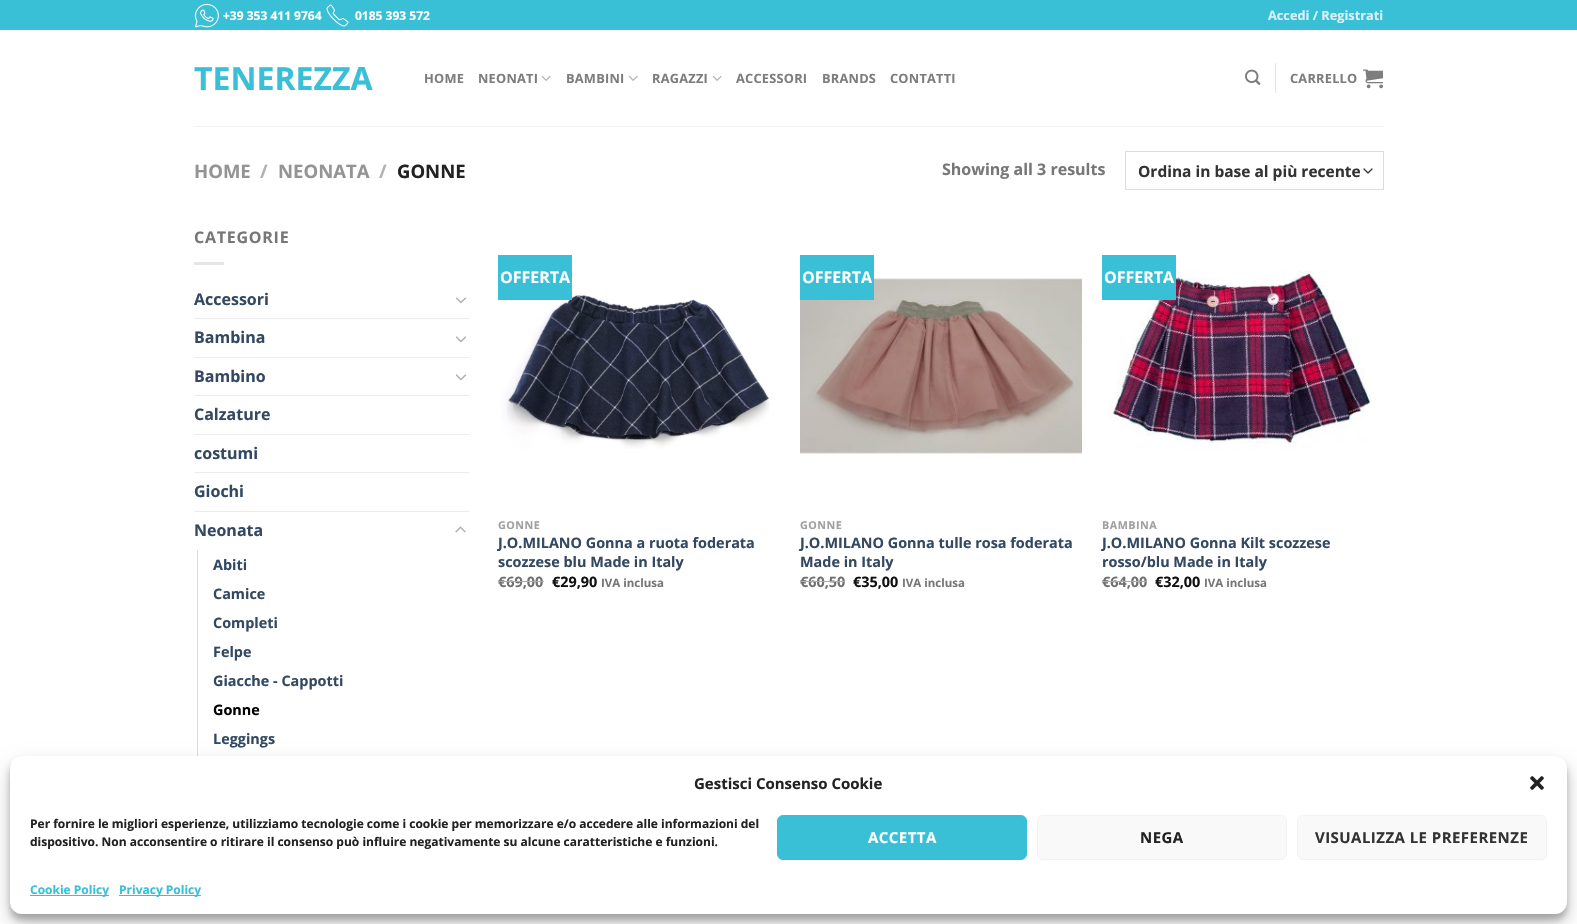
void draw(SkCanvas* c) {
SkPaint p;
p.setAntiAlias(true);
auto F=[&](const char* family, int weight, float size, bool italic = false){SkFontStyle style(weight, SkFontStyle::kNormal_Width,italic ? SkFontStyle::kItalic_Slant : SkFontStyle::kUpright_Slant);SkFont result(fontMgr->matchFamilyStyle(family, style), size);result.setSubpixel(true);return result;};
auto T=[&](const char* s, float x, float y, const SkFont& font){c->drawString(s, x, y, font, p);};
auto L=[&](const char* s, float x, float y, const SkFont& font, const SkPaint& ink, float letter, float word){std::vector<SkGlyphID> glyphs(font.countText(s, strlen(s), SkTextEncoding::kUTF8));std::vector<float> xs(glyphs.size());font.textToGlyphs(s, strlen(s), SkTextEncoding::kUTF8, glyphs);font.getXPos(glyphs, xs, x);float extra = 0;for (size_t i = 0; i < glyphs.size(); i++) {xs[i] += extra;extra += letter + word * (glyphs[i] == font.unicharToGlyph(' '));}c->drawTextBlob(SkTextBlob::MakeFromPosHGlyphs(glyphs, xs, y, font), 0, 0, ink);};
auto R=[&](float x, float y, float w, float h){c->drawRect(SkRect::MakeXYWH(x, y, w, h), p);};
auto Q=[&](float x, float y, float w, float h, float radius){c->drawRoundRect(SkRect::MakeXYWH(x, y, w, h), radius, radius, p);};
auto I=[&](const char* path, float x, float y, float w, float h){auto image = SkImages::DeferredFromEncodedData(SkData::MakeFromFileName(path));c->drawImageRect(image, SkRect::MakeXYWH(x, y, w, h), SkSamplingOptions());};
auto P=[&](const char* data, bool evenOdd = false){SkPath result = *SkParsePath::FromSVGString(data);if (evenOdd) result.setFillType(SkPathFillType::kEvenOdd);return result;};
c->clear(0xffffffff);
p.setColor(0xff39c0d6);
R(0,0,1577,30);
I("1.png",194,4,25,24);
auto f1 = F("Open Sans",700,12);
p.setColor(0xffffffff);
T("+39 353 411 9764",223,20,f1);
I("2.png",326,4,23,23);
T("0185 393 572",355,20,f1);
auto f2 = F("Open Sans",700,12.75);
p.setColor(0xffd7f2f7);
T("Accedi / Registrati",1268,20,f2);
auto f3 = F("Open Sans",700,32);
p.setColor(0xff39c0d6);
T("TENEREZZA",194,90,f3);
p.setColor(0xff7d7d7d);
L("HOME",424,83,f2,p,.25,0);
L("NEONATI",478,83,f2,p,.25,0);
I("3.png",541,75,10,6);
L("BAMBINI",566,83,f2,p,.25,0);
I("3.png",628,75,10,6);
L("RAGAZZI",652,83,f2,p,.25,0);
I("3.png",712,75,10,6);
L("ACCESSORI",736,83,f2,p,.25,0);
L("BRANDS",822,83,f2,p,.25,0);
L("CONTATTI",890,83,f2,p,.25,0);
I("4.png",1245,69,16,16);
p.setColor(0xffe6e6e6);
R(1275,63,1,30);
p.setColor(0xff7d7d7d);
L("CARRELLO",1290,83,f2,p,.25,0);
I("5.png",1363,69,20,20);
p.setColor(0xfff1f1f1);
R(194,126,1190,1);
auto f4 = F("Open Sans",700,18.5);
p.setColor(0xff949494);
T("HOME",194,178,f4);
p.setColor(0xffb2b2b2);
T("/",260,178,f4);
p.setColor(0xff949494);
T("NEONATA",278,178,f4);
p.setColor(0xffb2b2b2);
T("/",379,178,f4);
p.setColor(0xff222222);
T("GONNE",397,178,f4);
auto f5 = F("Open Sans",700,16);
p.setColor(0xff777777);
T("Showing all 3 results",942,175,f5);
p.setStroke(true);
p.setStrokeWidth(1.3);
p.setStrokeCap(SkPaint::kRound_Cap);
p.setStrokeJoin(SkPaint::kRound_Join);
p.setColor(0xff333333);
c->drawPath(P("M1364 169l4 4l4-4"),p);
p.setStrokeWidth(1);
p.setStrokeCap(SkPaint::kButt_Cap);
p.setStrokeJoin(SkPaint::kMiter_Join);
p.setColor(0xffdddddd);
c->drawRect(SkRect::MakeXYWH(1125.5,151.5,258,38),p);
auto f6 = F("Open Sans",700,15.5);
p.setStroke(false);
p.setColor(0xff333333);
T("Ordina in base al più recente",1138,177,f6);
p.setColor(0xff777777);
L("CATEGORIE",194,243,f5,p,.75,0);
p.setColor(0xffe6e6e6);
R(194,262,30,3);
p.setColor(0xff334862);
T("Accessori",194,305,f5);
I("6.png",455,297,12,7);
p.setColor(0xffececec);
R(194,318,275,1);
p.setColor(0xff334862);
T("Bambina",194,343,f5);
I("6.png",455,336,12,7);
p.setColor(0xffececec);
R(194,357,275,1);
p.setColor(0xff334862);
T("Bambino",194,382,f5);
I("6.png",455,374,12,7);
p.setColor(0xffececec);
R(194,395,275,1);
p.setColor(0xff334862);
T("Calzature",194,420,f5);
p.setColor(0xffececec);
R(194,434,275,1);
p.setColor(0xff334862);
T("costumi",194,459,f5);
p.setColor(0xffececec);
R(194,472,275,1);
p.setColor(0xff334862);
T("Giochi",194,497,f5);
p.setColor(0xffececec);
R(194,511,275,1);
p.setColor(0xff334862);
T("Neonata",194,536,f5);
I("7.png",455,526,11,7);
p.setColor(0xffdddddd);
R(197,550,1,206);
auto f7 = F("Open Sans",700,14.4);
p.setColor(0xff334862);
T("Abiti",213,570,f7);
T("Camice",213,599,f7);
T("Completi",213,628,f7);
T("Felpe",213,657,f7);
T("Giacche - Cappotti",213,686,f7);
p.setColor(0xff000000);
T("Gonne",213,715,f7);
p.setColor(0xff334862);
T("Leggings",213,744,f7);
I("8.png",501,295,269,154);
p.setColor(0xff39c0d6);
R(498,255,74,45);
p.setColor(0xffffffff);
T("OFFERTA",500,283,f5);
auto f8 = F("Open Sans",700,10.75);
p.setColor(0xffa0a0a0);
L("GONNE",498,529,f8,p,.5,0);
p.setColor(0xff334862);
T("J.O.MILANO Gonna a ruota foderata",498,548,f7);
T("scozzese blu Made in Italy",498,567,f7);
p.setColor(0xff707070);
T("€69,00",498,587,f7);
p.setColor(0xffadadad);
R(498,581,46,1);
p.setColor(0xff111111);
T("€29,90",552,587,f7);
auto f9 = F("Open Sans",700,11.5);
p.setColor(0xff777777);
T("IVA inclusa",601,587,f9);
I("9.png",800,278,282,177);
p.setColor(0xff39c0d6);
R(800,255,74,45);
p.setColor(0xffffffff);
T("OFFERTA",802,283,f5);
p.setColor(0xffa0a0a0);
L("GONNE",800,529,f8,p,.5,0);
p.setColor(0xff334862);
T("J.O.MILANO Gonna tulle rosa foderata",800,548,f7);
T("Made in Italy",800,567,f7);
p.setColor(0xff707070);
T("€60,50",800,587,f7);
p.setColor(0xffadadad);
R(800,581,45,1);
p.setColor(0xff111111);
T("€35,00",853,587,f7);
p.setColor(0xff777777);
T("IVA inclusa",902,587,f9);
I("10.png",1109,270,264,181);
p.setColor(0xff39c0d6);
R(1102,255,74,45);
p.setColor(0xffffffff);
T("OFFERTA",1104,283,f5);
p.setColor(0xffa0a0a0);
L("BAMBINA",1102,529,f8,p,.5,0);
p.setColor(0xff334862);
T("J.O.MILANO Gonna Kilt scozzese",1102,548,f7);
T("rosso/blu Made in Italy",1102,567,f7);
p.setColor(0xff707070);
T("€64,00",1102,587,f7);
p.setColor(0xffadadad);
R(1102,581,45,1);
p.setColor(0xff111111);
T("€32,00",1155,587,f7);
p.setColor(0xff777777);
T("IVA inclusa",1204,587,f9);
p.setColor(0x3b000000);
p.setMaskFilter(SkMaskFilter::MakeBlur(kNormal_SkBlurStyle, 3));
c->drawRoundRect(SkRect::MakeXYWH(10,762,1557,158),12,12,p);
p.setMaskFilter(nullptr);
p.setColor(0x30000000);
p.setMaskFilter(SkMaskFilter::MakeBlur(kNormal_SkBlurStyle, 10));
c->drawRoundRect(SkRect::MakeXYWH(10,766,1557,158),12,12,p);
p.setMaskFilter(nullptr);
p.setColor(0xffffffff);
Q(10,756,1557,158,12);
auto f10 = F("Open Sans",700,15);
p.setColor(0xff222222);
T("Gestisci Consenso Cookie",694,789,f10);
I("11.png",1530,776,14,14);
T("Per fornire le migliori esperienze, utilizziamo tecnologie come i cookie per memorizzare e/o accedere alle informazioni del",30,828,f1);
T("dispositivo. Non acconsentire o ritirare il consenso può influire negativamente su alcune caratteristiche e funzioni.",30,846,f1);
p.setColor(0xff39c0d6);
c->drawRoundRect(SkRect::MakeXYWH(777.5,815.5,249,44),5.5,5.5,p);
p.setStroke(true);
c->drawRoundRect(SkRect::MakeXYWH(777.5,815.5,249,44),5.5,5.5,p);
p.setStroke(false);
p.setColor(0xffffffff);
L("ACCETTA",868,843,f10,p,.45,0);
p.setColor(0xfff9f9f9);
c->drawRoundRect(SkRect::MakeXYWH(1037.5,815.5,249,44),5.5,5.5,p);
p.setStroke(true);
p.setColor(0xfff2f2f2);
c->drawRoundRect(SkRect::MakeXYWH(1037.5,815.5,249,44),5.5,5.5,p);
p.setStroke(false);
p.setColor(0xff222222);
L("NEGA",1140,843,f10,p,.45,0);
p.setColor(0xfff9f9f9);
c->drawRoundRect(SkRect::MakeXYWH(1297.5,815.5,249,44),5.5,5.5,p);
p.setStroke(true);
p.setColor(0xfff2f2f2);
c->drawRoundRect(SkRect::MakeXYWH(1297.5,815.5,249,44),5.5,5.5,p);
p.setStroke(false);
p.setColor(0xff333333);
L("VISUALIZZA LE PREFERENZE",1315,843,f10,p,.45,0);
p.setColor(0xff39c0d6);
R(30,895,79,1);
T("Cookie Policy",30,894,f1);
R(119,895,82,1);
T("Privacy Policy",119,894,f1);
}
